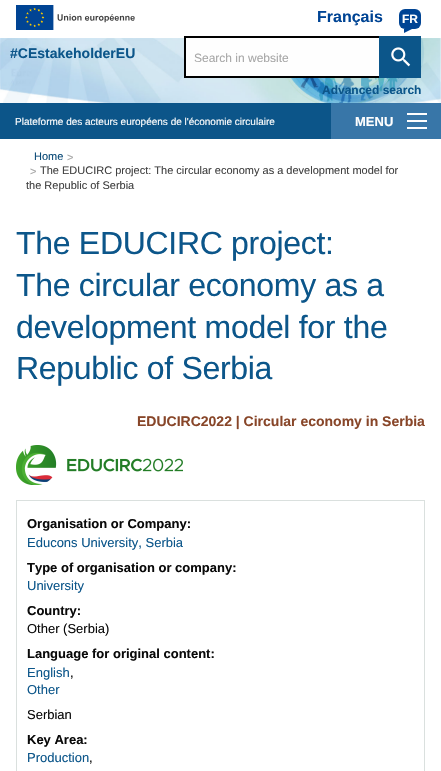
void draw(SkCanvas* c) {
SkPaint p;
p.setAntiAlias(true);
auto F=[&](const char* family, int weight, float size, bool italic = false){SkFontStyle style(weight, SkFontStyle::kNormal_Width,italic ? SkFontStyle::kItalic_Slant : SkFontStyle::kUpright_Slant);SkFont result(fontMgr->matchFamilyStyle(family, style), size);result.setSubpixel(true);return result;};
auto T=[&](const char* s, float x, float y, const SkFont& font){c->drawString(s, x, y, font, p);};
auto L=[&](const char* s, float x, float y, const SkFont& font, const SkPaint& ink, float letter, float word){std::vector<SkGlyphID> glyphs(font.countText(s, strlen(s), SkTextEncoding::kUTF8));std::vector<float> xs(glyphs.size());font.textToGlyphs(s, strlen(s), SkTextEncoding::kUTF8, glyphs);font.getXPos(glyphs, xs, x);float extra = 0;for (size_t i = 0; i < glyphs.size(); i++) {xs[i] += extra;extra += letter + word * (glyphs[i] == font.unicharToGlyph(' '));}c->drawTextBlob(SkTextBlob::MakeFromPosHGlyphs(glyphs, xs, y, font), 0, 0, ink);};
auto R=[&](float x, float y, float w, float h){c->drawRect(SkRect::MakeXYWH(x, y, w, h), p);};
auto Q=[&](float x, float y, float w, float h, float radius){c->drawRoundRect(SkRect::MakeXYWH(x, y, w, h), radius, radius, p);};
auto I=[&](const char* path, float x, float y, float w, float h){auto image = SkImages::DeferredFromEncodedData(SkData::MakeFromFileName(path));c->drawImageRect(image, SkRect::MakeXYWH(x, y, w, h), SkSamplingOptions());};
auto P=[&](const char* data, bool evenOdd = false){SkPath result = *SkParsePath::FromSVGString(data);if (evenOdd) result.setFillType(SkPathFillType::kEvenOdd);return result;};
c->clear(0xffffffff);
I("1.png",16,5,119,25);
auto f1 = F("Liberation Sans",700,16);
p.setColor(0xff004494);
T("Français",317,22,f1);
Q(399,9,22,20,6);
auto f2 = F("Liberation Sans",700,12);
p.setColor(0xfffefefe);
T("FR",402,23,f2);
p.setColor(0xff004494);
c->drawPath(P("M404 29h8l-8 4z"),p);
I("2.png",0,38,441,65);
auto f3 = F("Liberation Sans",700,14);
p.setColor(0xff0c568a);
T("#CEstakeholderEU",10,58,f3);
p.setColor(0xfffefefe);
R(186,38,193,38);
p.setStroke(true);
p.setStrokeWidth(2);
p.setColor(0xff000000);
c->drawRect(SkRect::MakeXYWH(185,37,235,40),p);
auto f4 = F("Liberation Sans",400,12);
p.setStroke(false);
p.setColor(0xffa7a7a7);
T("Search in website",194,62,f4);
p.setColor(0xff0c568a);
R(379,36,42,42);
I("3.png",391,47,20,20);
T("Advanced search",322,94,f2);
p.setColor(0xff3876a8);
R(331,103,110,36);
p.setColor(0xff0c5589);
R(0,103,331,36);
auto f5 = F("Liberation Sans",400,10);
p.setColor(0xfffefefe);
T("Plateforme des acteurs européens de l'économie circulaire",15,125,f5);
auto f6 = F("Liberation Sans",700,13);
T("MENU",355,126,f6);
R(407,127,20,2);
R(407,120,20,2);
R(407,113,20,2);
auto f7 = F("Liberation Sans",400,11);
p.setColor(0xff0a4a77);
T("Home",34,160,f7);
p.setColor(0xffa7a7a7);
T(">",67,161,f7);
T(">",30,175,f7);
p.setColor(0xff404040);
T("The EDUCIRC project: The circular economy as a development model for",40,174,f7);
T("the Republic of Serbia",26,189,f7);
auto f8 = F("Liberation Sans",400,32);
p.setColor(0xff0c568a);
L("The EDUCIRC project:",16,254,f8,p,-.3,0);
L("The circular economy as a",16,296,f8,p,-.3,0);
L("development model for the",16,338,f8,p,-.3,0);
L("Republic of Serbia",16,379,f8,p,-.3,0);
p.setColor(0xff884629);
T("EDUCIRC2022 | Circular economy in Serbia",137,426,f3);
I("4.png",16,445,167,40);
p.setStroke(true);
p.setStrokeWidth(1);
p.setColor(0xffdae0de);
c->drawRect(SkRect::MakeXYWH(16.5,500.5,408,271),p);
p.setStroke(false);
p.setColor(0xff0a0a0a);
T("Organisation or Company:",27,528,f6);
auto f9 = F("Liberation Sans",400,13);
p.setColor(0xff0c568a);
T("Educons University, Serbia",27,547,f9);
p.setColor(0xff0a0a0a);
T("Type of organisation or company:",27,572,f6);
p.setColor(0xff0c568a);
T("University",27,590,f9);
p.setColor(0xff0a0a0a);
T("Country:",27,615,f6);
T("Other (Serbia)",27,633,f9);
T("Language for original content:",27,658,f6);
p.setColor(0xff0c568a);
T("English",27,677,f9);
p.setColor(0xff0a0a0a);
T(",",70,677,f9);
p.setColor(0xff0c568a);
T("Other",27,694,f9);
p.setColor(0xff0a0a0a);
T("Serbian",27,719,f9);
T("Key Area:",27,744,f6);
p.setColor(0xff0c568a);
T("Production",27,762,f9);
p.setColor(0xff0a0a0a);
T(",",89,762,f9);
}
